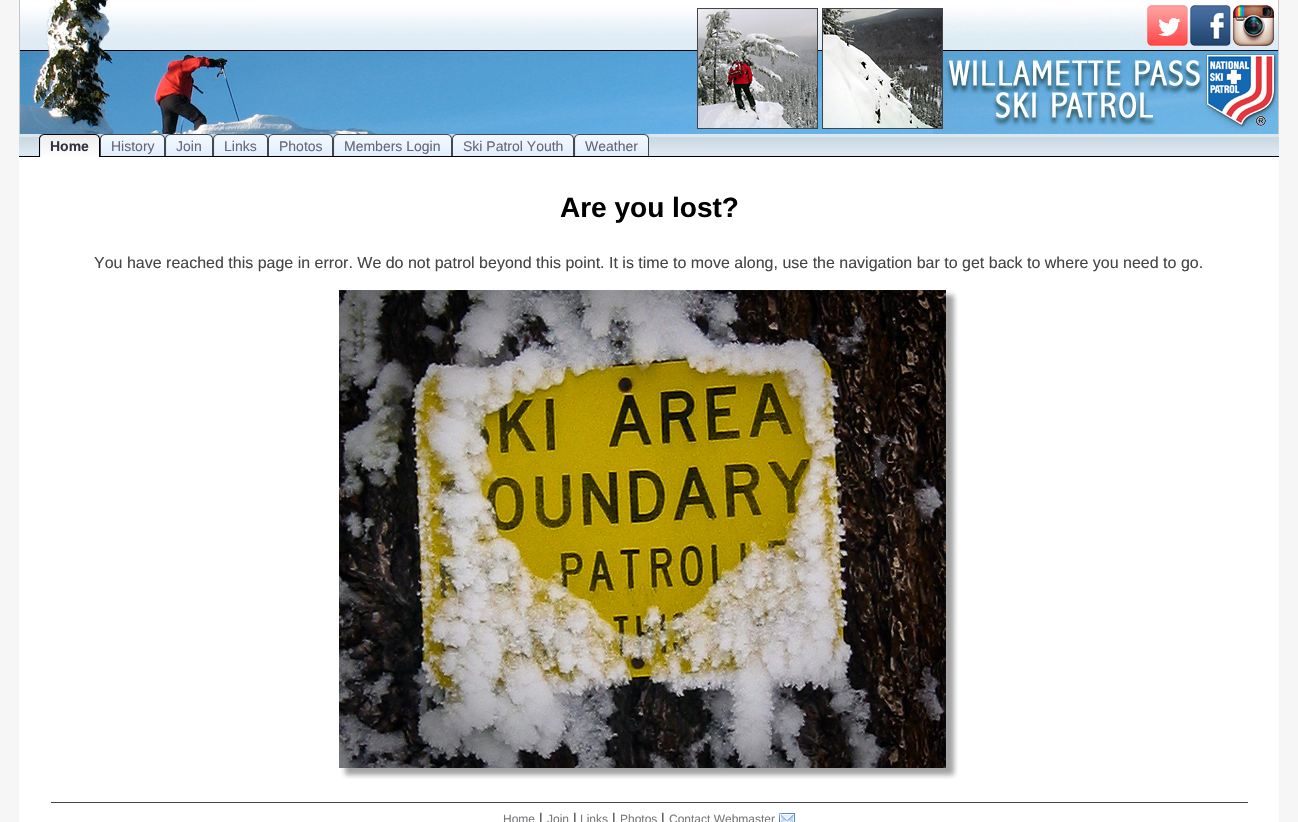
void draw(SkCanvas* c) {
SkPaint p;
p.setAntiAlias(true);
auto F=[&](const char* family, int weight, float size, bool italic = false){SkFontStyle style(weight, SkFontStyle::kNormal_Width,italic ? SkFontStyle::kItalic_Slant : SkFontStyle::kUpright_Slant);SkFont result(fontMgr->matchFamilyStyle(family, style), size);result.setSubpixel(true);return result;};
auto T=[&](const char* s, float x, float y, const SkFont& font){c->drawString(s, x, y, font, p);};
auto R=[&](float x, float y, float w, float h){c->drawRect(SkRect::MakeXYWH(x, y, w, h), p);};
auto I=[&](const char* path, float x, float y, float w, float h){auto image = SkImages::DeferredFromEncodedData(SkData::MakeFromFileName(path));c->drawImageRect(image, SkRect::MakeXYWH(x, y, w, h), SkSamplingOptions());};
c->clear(0xfff6f6f6);
p.setColor(0xffffffff);
R(19,157,1260,665);
I("1.png",20,0,1258,134);
p.setColor(0xffc6c6c6);
R(1278,0,1,134);
R(19,0,1,134);
I("2.png",933,9,345,125);
p.setStroke(true);
p.setStrokeWidth(1);
p.setColor(0xff444448);
c->drawRect(SkRect::MakeXYWH(697.5,8.5,120,120),p);
I("3.png",698,9,119,119);
c->drawRect(SkRect::MakeXYWH(822.5,8.5,120,120),p);
I("4.png",823,9,119,119);
I("5.png",1147,5,41,41);
I("6.png",1190,5,41,41);
I("7.png",1233,5,41,41);
I("8.png",19,134,1260,23);
I("9.png",39,134,56,23);
I("10.png",95,134,5,23);
auto f1 = F("Liberation Sans",700,14);
p.setStroke(false);
p.setColor(0xff333344);
T("Home",50,151,f1);
I("11.png",100,134,60,22);
I("12.png",160,134,5,22);
auto f2 = F("Liberation Sans",400,14);
p.setColor(0xff666677);
T("History",111,151,f2);
I("13.png",165,134,43,22);
I("12.png",208,134,5,22);
T("Join",176,151,f2);
I("14.png",213,134,50,22);
I("12.png",263,134,5,22);
T("Links",224,151,f2);
I("15.png",268,134,60,22);
I("12.png",328,134,5,22);
T("Photos",279,151,f2);
I("16.png",333,134,114,22);
I("12.png",447,134,5,22);
T("Members Login",344,151,f2);
I("17.png",452,134,117,22);
I("12.png",569,134,5,22);
T("Ski Patrol Youth",463,151,f2);
I("18.png",574,134,70,22);
I("12.png",644,134,5,22);
T("Weather",585,151,f2);
auto f3 = F("Liberation Sans",700,28);
p.setColor(0xff000000);
T("Are you lost?",560,217,f3);
auto f4 = F("Liberation Sans",400,16);
p.setColor(0xff444448);
T("You have reached this page in error. We do not patrol beyond this point. It is time to move along, use the navigation bar to get back to where you need to go.",94,268,f4);
I("19.png",339,290,619,489);
R(51,802,1197,1);
auto f5 = F("Liberation Sans",400,12);
p.setColor(0xff79797c);
T("Home",503,823,f5);
p.setColor(0xff444448);
T("|",539,823,f2);
p.setColor(0xff79797c);
T("Join",547,823,f5);
p.setColor(0xff444448);
T("|",573,823,f2);
p.setColor(0xff79797c);
T("Links",580,823,f5);
p.setColor(0xff444448);
T("|",612,823,f2);
p.setColor(0xff79797c);
T("Photos",620,823,f5);
p.setColor(0xff444448);
T("|",661,823,f2);
p.setColor(0xff79797c);
T("Contact Webmaster",669,823,f5);
I("20.png",779,813,16,9);
}
